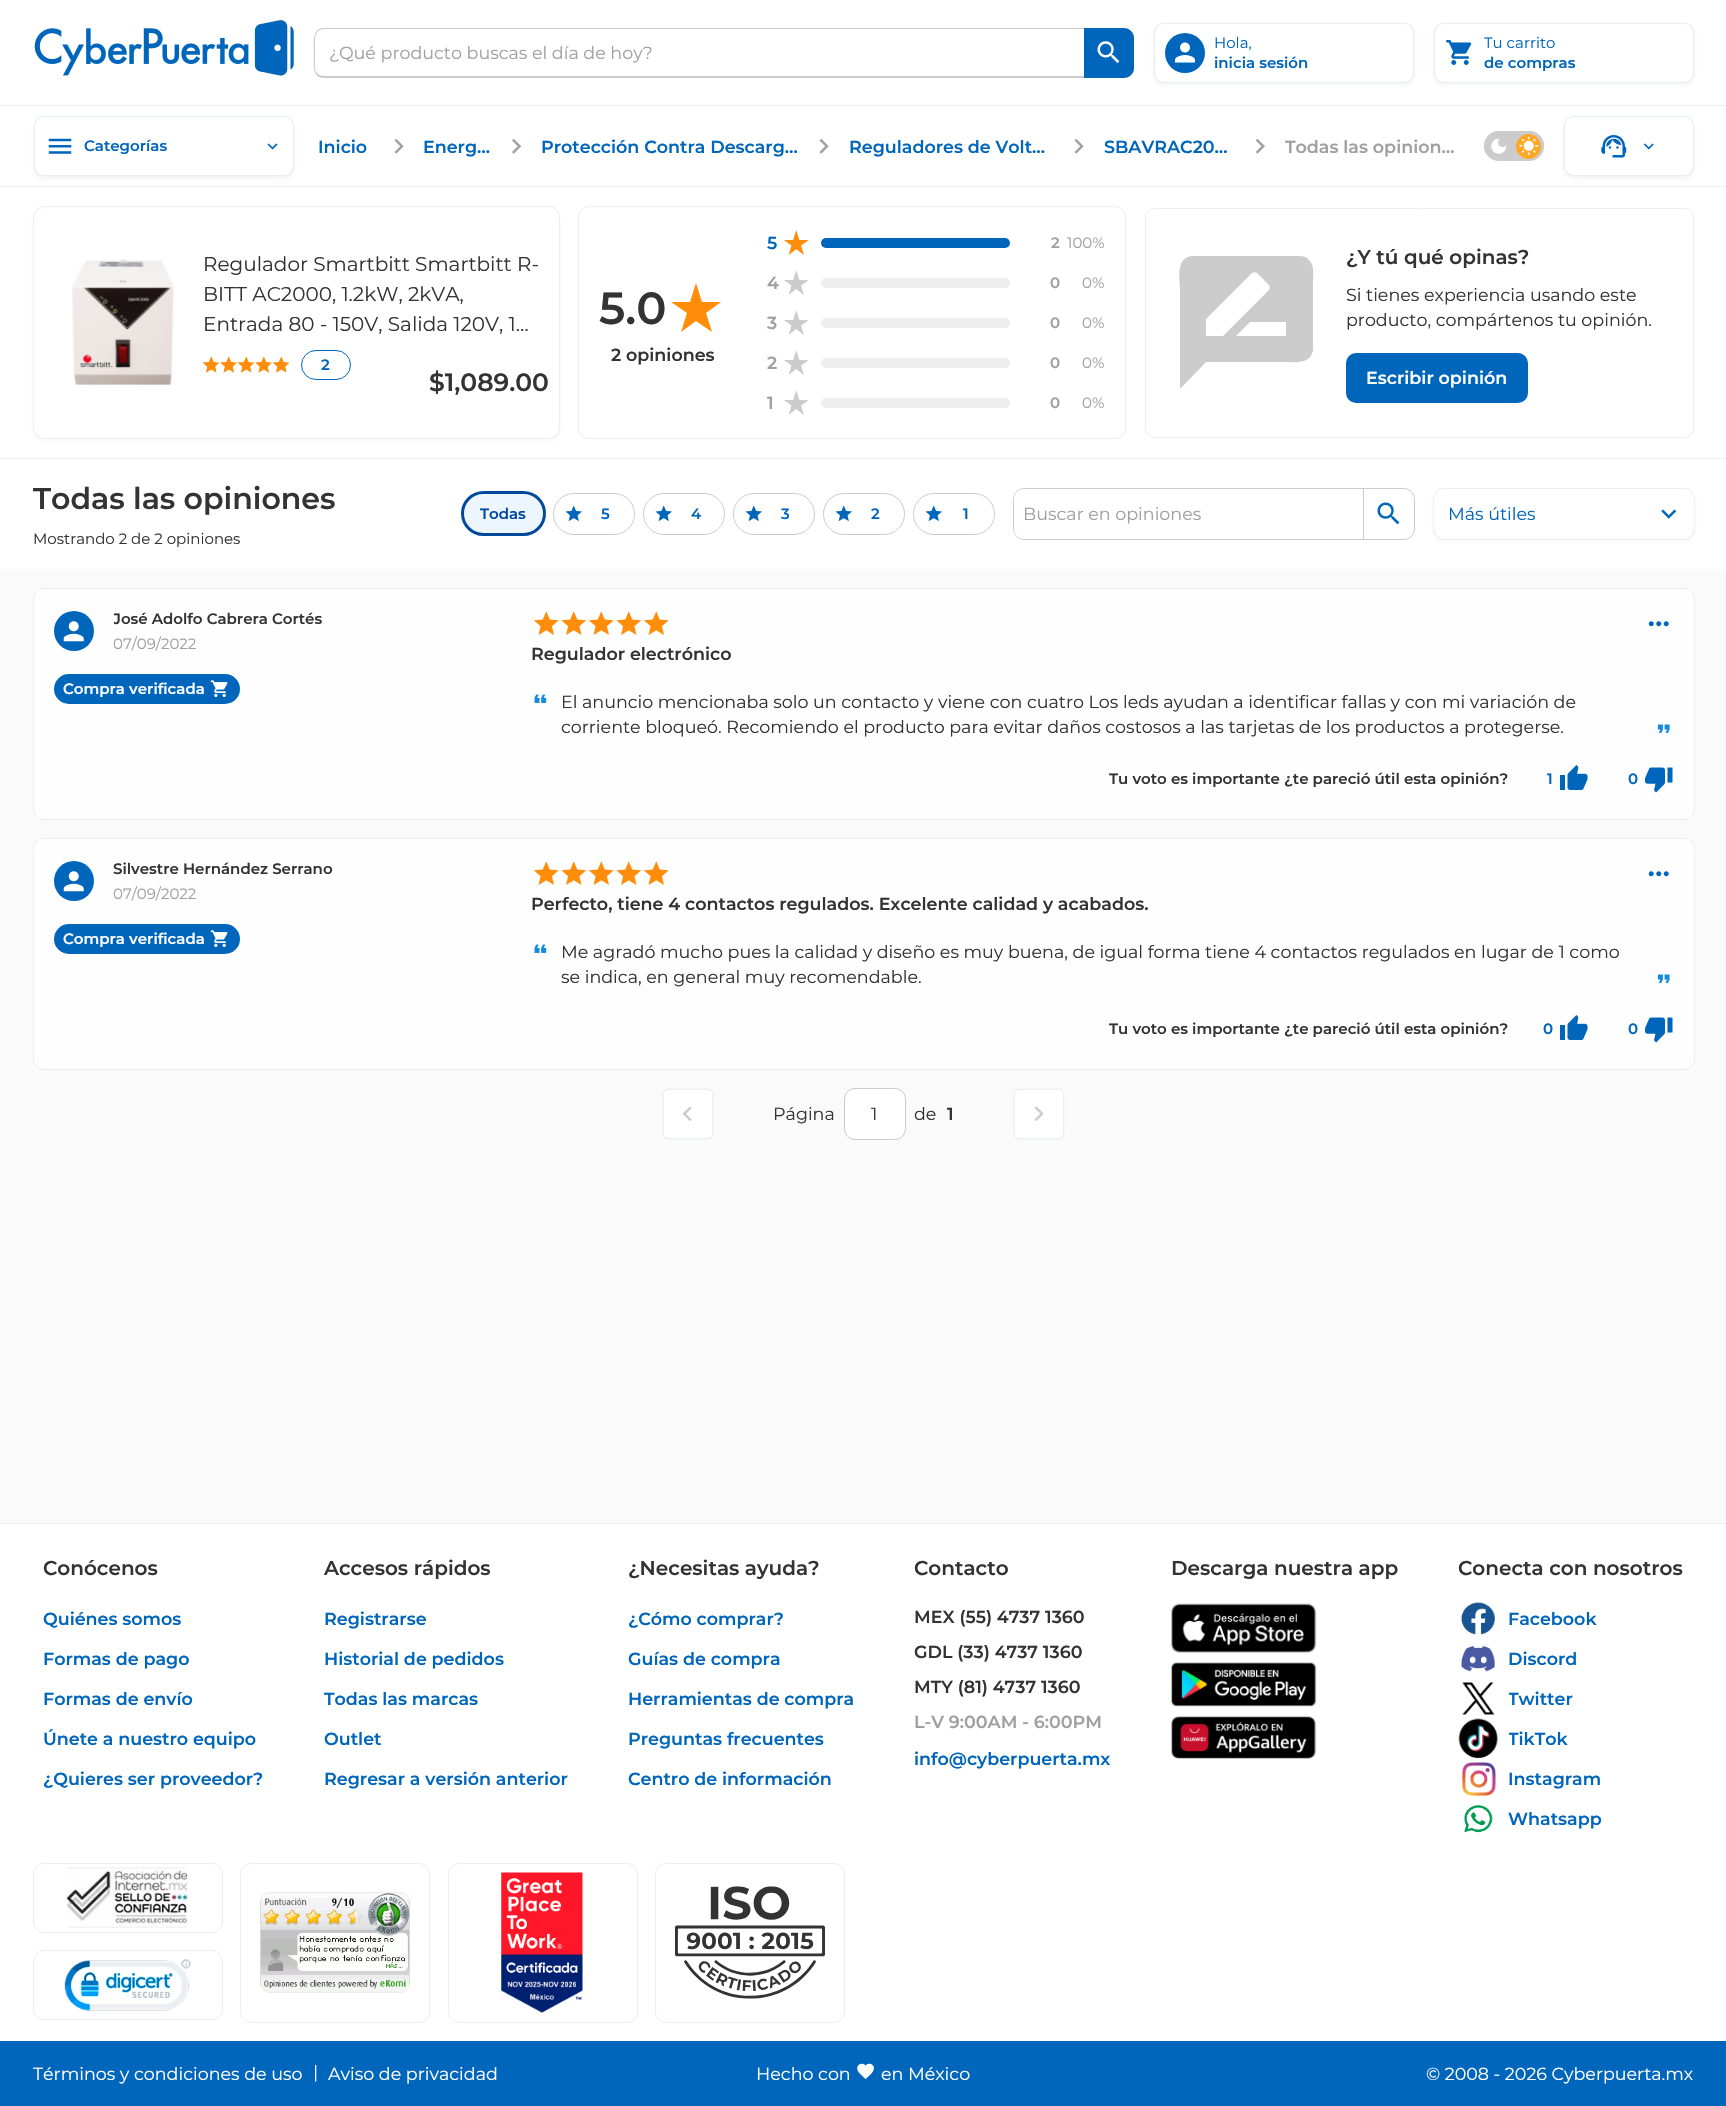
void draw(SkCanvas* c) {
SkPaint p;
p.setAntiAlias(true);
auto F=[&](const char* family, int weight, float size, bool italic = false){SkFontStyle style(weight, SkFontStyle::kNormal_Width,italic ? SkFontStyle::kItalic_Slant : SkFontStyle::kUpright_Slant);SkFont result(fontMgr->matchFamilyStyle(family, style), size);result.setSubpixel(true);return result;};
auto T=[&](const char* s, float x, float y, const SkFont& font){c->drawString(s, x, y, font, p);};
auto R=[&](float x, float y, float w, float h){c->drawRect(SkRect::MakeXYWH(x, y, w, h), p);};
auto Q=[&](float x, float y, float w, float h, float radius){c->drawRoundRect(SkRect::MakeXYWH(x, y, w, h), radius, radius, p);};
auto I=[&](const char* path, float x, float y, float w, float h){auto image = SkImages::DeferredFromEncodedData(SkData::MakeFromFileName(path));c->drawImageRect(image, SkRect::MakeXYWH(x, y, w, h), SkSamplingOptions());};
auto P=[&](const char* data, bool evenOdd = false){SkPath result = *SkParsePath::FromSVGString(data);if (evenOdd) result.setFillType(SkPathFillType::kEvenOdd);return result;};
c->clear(0xfffafafa);
p.setColor(0xffffffff);
R(0,0,1726,105);
p.setColor(0xffeeeeee);
R(0,105,1726,1);
I("1.png",34,20,260,56);
p.setColor(0xffcccccc);
c->drawPath(P("M324 28c-13 0-10 17-10 25c0 8-3 25 10 25h760v-2h-760c-5 0-9-4-9-8v-30c0-5 4-9 9-9h760v-1z"),p);
auto f1 = F("Montserrat",400,17.5);
p.setColor(0xffa0a0a0);
T("¿Qué producto buscas el día de hoy?",329,59,f1);
p.setColor(0xff0066bb);
c->drawPath(P("M1084 28h40c5.5 0 10 4.5 10 10v30c0 5.5-4.5 10-10 10h-40z"),p);
I("2.png",1097,41,23,22);
p.setColor(0x33cccccc);
p.setMaskFilter(SkMaskFilter::MakeBlur(kNormal_SkBlurStyle, 2.5));
c->drawRoundRect(SkRect::MakeXYWH(1154,25,260,60),10,10,p);
p.setMaskFilter(nullptr);
p.setColor(0x140066bb);
p.setMaskFilter(SkMaskFilter::MakeBlur(kNormal_SkBlurStyle, 1));
c->drawRoundRect(SkRect::MakeXYWH(1154,23,260,60),10,10,p);
p.setMaskFilter(nullptr);
p.setColor(0xffffffff);
c->drawRoundRect(SkRect::MakeXYWH(1154.5,23.5,259,59),9.5,9.5,p);
p.setStroke(true);
p.setStrokeWidth(1);
p.setColor(0xffeeeeee);
c->drawRoundRect(SkRect::MakeXYWH(1154.5,23.5,259,59),9.5,9.5,p);
p.setStroke(false);
p.setColor(0xff0066bb);
c->drawCircle(1185,53,20,p);
I("3.png",1175,42,20,21);
auto f2 = F("Montserrat",400,15);
T("Hola,",1214,48,f2);
auto f3 = F("Montserrat",600,15);
T("inicia sesión",1214,68,f3);
p.setColor(0x33cccccc);
p.setMaskFilter(SkMaskFilter::MakeBlur(kNormal_SkBlurStyle, 2.5));
c->drawRoundRect(SkRect::MakeXYWH(1434,25,260,60),10,10,p);
p.setMaskFilter(nullptr);
p.setColor(0x140066bb);
p.setMaskFilter(SkMaskFilter::MakeBlur(kNormal_SkBlurStyle, 1));
c->drawRoundRect(SkRect::MakeXYWH(1434,23,260,60),10,10,p);
p.setMaskFilter(nullptr);
p.setColor(0xffffffff);
c->drawRoundRect(SkRect::MakeXYWH(1434.5,23.5,259,59),9.5,9.5,p);
p.setStroke(true);
p.setColor(0xffeeeeee);
c->drawRoundRect(SkRect::MakeXYWH(1434.5,23.5,259,59),9.5,9.5,p);
I("4.png",1446,40,26,25);
p.setStroke(false);
p.setColor(0xff0066bb);
T("Tu carrito",1484,48,f2);
T("de compras",1484,68,f3);
p.setColor(0xffffffff);
R(0,106,1726,463);
p.setColor(0xffeeeeee);
R(0,186,1726,1);
p.setColor(0x33cccccc);
p.setMaskFilter(SkMaskFilter::MakeBlur(kNormal_SkBlurStyle, 2.5));
c->drawRoundRect(SkRect::MakeXYWH(34,119,260,60),10,10,p);
p.setMaskFilter(nullptr);
p.setColor(0x140066bb);
p.setMaskFilter(SkMaskFilter::MakeBlur(kNormal_SkBlurStyle, 1));
c->drawRoundRect(SkRect::MakeXYWH(34,116,260,60),10,10,p);
p.setMaskFilter(nullptr);
p.setColor(0xffffffff);
c->drawRoundRect(SkRect::MakeXYWH(34.5,116.5,259,59),9.5,9.5,p);
p.setStroke(true);
p.setColor(0xffeeeeee);
c->drawRoundRect(SkRect::MakeXYWH(34.5,116.5,259,59),9.5,9.5,p);
I("5.png",48,138,24,16);
p.setStroke(false);
p.setColor(0xff0066bb);
T("Categorías",84,151,f3);
I("6.png",267,143,11,7);
auto f4 = F("Montserrat",600,17.5);
T("Inicio",318,153,f4);
I("7.png",394,138,10,16);
T("Energ…",423,153,f4);
I("8.png",512,138,10,16);
T("Protección Contra Descarg…",541,153,f4);
I("7.png",819,138,10,16);
T("Reguladores de Volt…",849,153,f4);
I("7.png",1074,138,10,16);
T("SBAVRAC20…",1104,153,f4);
I("9.png",1255,138,10,16);
p.setColor(0xffa0a0a0);
T("Todas las opinion…",1285,153,f4);
p.setColor(0xffcccccc);
Q(1484,131,60,30,15);
c->drawCircle(1499,146,13.5,p);
p.setStroke(true);
p.setStrokeWidth(3);
c->drawCircle(1499,146,13.5,p);
I("10.png",1491,138,16,16);
p.setStroke(false);
c->drawCircle(1529,146,13.5,p);
p.setStroke(true);
c->drawCircle(1529,146,13.5,p);
p.setStroke(false);
p.setColor(0xffffa826);
c->drawCircle(1528.5,146.5,12.5,p);
I("11.png",1519,136,19,19);
p.setColor(0x33cccccc);
p.setMaskFilter(SkMaskFilter::MakeBlur(kNormal_SkBlurStyle, 2.5));
c->drawRoundRect(SkRect::MakeXYWH(1564,119,130,60),10,10,p);
p.setMaskFilter(nullptr);
p.setColor(0x140066bb);
p.setMaskFilter(SkMaskFilter::MakeBlur(kNormal_SkBlurStyle, 1));
c->drawRoundRect(SkRect::MakeXYWH(1564,116,130,60),10,10,p);
p.setMaskFilter(nullptr);
p.setColor(0xffffffff);
c->drawRoundRect(SkRect::MakeXYWH(1564.5,116.5,129,59),9.5,9.5,p);
p.setStroke(true);
p.setStrokeWidth(1);
p.setColor(0xffeeeeee);
c->drawRoundRect(SkRect::MakeXYWH(1564.5,116.5,129,59),9.5,9.5,p);
I("12.png",1601,135,26,23);
I("13.png",1643,143,11,7);
p.setStroke(false);
p.setColor(0x33cccccc);
p.setMaskFilter(SkMaskFilter::MakeBlur(kNormal_SkBlurStyle, 2.5));
c->drawRoundRect(SkRect::MakeXYWH(34,210,525,230),10,10,p);
p.setMaskFilter(nullptr);
p.setColor(0x140066bb);
p.setMaskFilter(SkMaskFilter::MakeBlur(kNormal_SkBlurStyle, 1));
c->drawRoundRect(SkRect::MakeXYWH(34,208,525,230),10,10,p);
p.setMaskFilter(nullptr);
p.setColor(0xffffffff);
Q(34,208,525,230,10);
p.setStroke(true);
p.setColor(0xffeeeeee);
c->drawRoundRect(SkRect::MakeXYWH(33.5,206.5,526,232),10.5,10.5,p);
I("14.png",72,259,102,126);
auto f5 = F("Montserrat",400,20);
p.setStroke(false);
p.setColor(0xff333333);
T("Regulador Smartbitt Smartbitt R-",203,271,f5);
T("BITT AC2000, 1.2kW, 2kVA,",203,301,f5);
T("Entrada 80 - 150V, Salida 120V, 1…",203,331,f5);
I("15.png",203,356,13,17);
I("16.png",203,356,17,17);
I("17.png",220,356,14,17);
I("18.png",220,356,17,17);
I("15.png",238,356,13,17);
I("16.png",238,356,17,17);
I("17.png",255,356,14,17);
I("18.png",255,356,17,17);
I("15.png",273,356,13,17);
I("16.png",273,356,17,17);
p.setStroke(true);
p.setColor(0xff0066bb);
c->drawRoundRect(SkRect::MakeXYWH(301.5,350.5,49,29),14.5,14.5,p);
p.setStroke(false);
T("2",321,370,f3);
auto f6 = F("Montserrat",600,25);
p.setColor(0xff333333);
T("$1,089.00",429,391,f6);
p.setStroke(true);
p.setColor(0xffeeeeee);
c->drawRoundRect(SkRect::MakeXYWH(578.5,206.5,547,232),10.5,10.5,p);
auto f7 = F("Montserrat",600,45);
p.setStroke(false);
p.setColor(0xff333333);
T("5.0",599,324,f7);
p.setColor(0xffff8d0a);
c->drawPath(P("M702 302l-6-19l-6 19h-19l16 11l-6 19l15-11l16 11l-6-19l15-11z"),p);
p.setColor(0xff333333);
T("2 opiniones",611,361,f4);
p.setColor(0xff0066bb);
T("5",767,249,f4);
I("19.png",784,230,25,25);
Q(821,238,189,10,5);
p.setColor(0xffa0a0a0);
T("2",1051,248,f3);
T("100%",1067,248,f2);
T("4",767,289,f4);
I("20.png",784,270,25,25);
p.setColor(0xffeeeeee);
Q(821,278,189,10,5);
p.setColor(0xffa0a0a0);
T("0",1050,288,f3);
T("0%",1082,288,f2);
T("3",767,329,f4);
I("20.png",784,310,25,25);
p.setColor(0xffeeeeee);
Q(821,318,189,10,5);
p.setColor(0xffa0a0a0);
T("0",1050,328,f3);
T("0%",1082,328,f2);
T("2",767,369,f4);
I("20.png",784,350,25,25);
p.setColor(0xffeeeeee);
Q(821,358,189,10,5);
p.setColor(0xffa0a0a0);
T("0",1050,368,f3);
T("0%",1082,368,f2);
T("1",767,409,f4);
I("20.png",784,390,25,25);
p.setColor(0xffeeeeee);
Q(821,398,189,10,5);
p.setColor(0xffa0a0a0);
T("0",1050,408,f3);
T("0%",1082,408,f2);
p.setStroke(true);
p.setColor(0xffeeeeee);
c->drawRoundRect(SkRect::MakeXYWH(1145.5,208.5,548,229),9.5,9.5,p);
p.setStroke(false);
p.setColor(0xffcccccc);
c->drawPath(P("M1286 336v-14h-36l-14 14zm-80 0h17l46-46c1-2 1-3 0-5l-12-12c-2-1-3-1-5 0l-46 46zm94-80c3 0 6 1 8 3c7 6 5 15 5 23v68c-2 15-19 12-29 12h-78l-26 27v-100c0-10-5-31 12-33z"),p);
auto f8 = F("Montserrat",600,20);
p.setColor(0xff333333);
T("¿Y tú qué opinas?",1346,264,f8);
T("Si tienes experiencia usando este",1346,301,f1);
T("producto, compártenos tu opinión.",1346,326,f1);
p.setColor(0xff0066bb);
Q(1346,353,182,50,10);
p.setColor(0xffffffff);
T("Escribir opinión",1366,384,f4);
p.setColor(0xffeeeeee);
R(0,458,1726,1);
auto f9 = F("Montserrat",600,30);
p.setColor(0xff333333);
T("Todas las opiniones",33,509,f9);
T("Mostrando 2 de 2 opiniones",33,544,f2);
p.setColor(0xffedf6fd);
c->drawRoundRect(SkRect::MakeXYWH(462.5,492.5,82,42),21,21,p);
p.setStroke(true);
p.setStrokeWidth(3);
p.setColor(0xff00499c);
c->drawRoundRect(SkRect::MakeXYWH(462.5,492.5,82,42),21,21,p);
p.setStroke(false);
T("Todas",480,519,f3);
p.setStroke(true);
p.setStrokeWidth(1);
p.setColor(0xffcccccc);
c->drawRoundRect(SkRect::MakeXYWH(553.5,493.5,81,41),20.5,20.5,p);
I("21.png",565,505,17,17);
p.setStroke(false);
p.setColor(0xff0066bb);
T("5",601,519,f3);
p.setStroke(true);
p.setColor(0xffcccccc);
c->drawRoundRect(SkRect::MakeXYWH(643.5,493.5,81,41),20.5,20.5,p);
I("21.png",655,505,17,17);
p.setStroke(false);
p.setColor(0xff0066bb);
T("4",691,519,f3);
p.setStroke(true);
p.setColor(0xffcccccc);
c->drawRoundRect(SkRect::MakeXYWH(733.5,493.5,81,41),20.5,20.5,p);
I("21.png",745,505,17,17);
p.setStroke(false);
p.setColor(0xff0066bb);
T("3",781,519,f3);
p.setStroke(true);
p.setColor(0xffcccccc);
c->drawRoundRect(SkRect::MakeXYWH(823.5,493.5,81,41),20.5,20.5,p);
I("21.png",835,505,17,17);
p.setStroke(false);
p.setColor(0xff0066bb);
T("2",871,519,f3);
p.setStroke(true);
p.setColor(0xffcccccc);
c->drawRoundRect(SkRect::MakeXYWH(913.5,493.5,81,41),20.5,20.5,p);
I("21.png",925,505,17,17);
p.setStroke(false);
p.setColor(0xff0066bb);
T("1",963,519,f3);
p.setStroke(true);
p.setColor(0xffcccccc);
c->drawRoundRect(SkRect::MakeXYWH(1013.5,488.5,401,51),10.5,10.5,p);
p.setStroke(false);
p.setColor(0xffffffff);
c->drawPath(P("M1024 489h339v50h-339c-5.5 0-10-4.5-10-10v-30c0-5.5 4.5-10 10-10z"),p);
p.setColor(0xffa0a0a0);
T("Buscar en opiniones",1023,520,f1);
p.setColor(0xffcccccc);
R(1363,489,1,50);
I("22.png",1377,502,23,23);
p.setColor(0x33cccccc);
p.setMaskFilter(SkMaskFilter::MakeBlur(kNormal_SkBlurStyle, 2.5));
c->drawRoundRect(SkRect::MakeXYWH(1434,491,260,50),10,10,p);
p.setMaskFilter(nullptr);
p.setColor(0x140066bb);
p.setMaskFilter(SkMaskFilter::MakeBlur(kNormal_SkBlurStyle, 1));
c->drawRoundRect(SkRect::MakeXYWH(1434,489,260,50),10,10,p);
p.setMaskFilter(nullptr);
p.setColor(0xffffffff);
Q(1434,489,260,50,10);
p.setStroke(true);
p.setColor(0xffeeeeee);
c->drawRoundRect(SkRect::MakeXYWH(1433.5,488.5,261,51),10.5,10.5,p);
p.setStroke(false);
p.setColor(0xff0066bb);
T("Más útiles",1448,520,f1);
I("23.png",1661,509,16,10);
p.setColor(0xfffefefe);
Q(34,589,1660,230,10);
p.setColor(0xff0066bb);
Q(54,674,186,30,15);
p.setStroke(true);
p.setColor(0xffeeeeee);
c->drawRoundRect(SkRect::MakeXYWH(33.5,588.5,1661,231),10.5,10.5,p);
p.setStroke(false);
p.setColor(0xff0066bb);
c->drawCircle(74,631,20,p);
I("24.png",63,621,21,21);
c->save();
c->clipRect(SkRect::MakeXYWH(114,609,300,20));
p.setColor(0xff333333);
T("José Adolfo Cabrera Cortés",113,624,f3);
c->restore();
p.setColor(0xffa0a0a0);
T("07/09/2022",113,649,f2);
p.setColor(0xffffffff);
T("Compra verificada",63,694,f3);
I("25.png",210,680,18,18);
I("26.png",1648,621,21,6);
I("27.png",533,611,26,24);
I("28.png",561,611,26,24);
I("27.png",588,611,26,24);
I("28.png",616,611,26,24);
I("27.png",643,611,26,24);
p.setColor(0xff333333);
T("Regulador electrónico",531,660,f4);
I("29.png",534,694,13,9);
T("El anuncio mencionaba solo un contacto y viene con cuatro Los leds ayudan a identificar fallas y con mi variación de",561,708,f1);
T("corriente bloqueó. Recomiendo el producto para evitar daños costosos a las tarjetas de los productos a protegerse.",561,733,f1);
I("30.png",1657,724,13,9);
T("Tu voto es importante ¿te pareció útil esta opinión?",1109,784,f3);
p.setColor(0xff0066bb);
T("1",1547,784,f3);
I("31.png",1560,765,28,25);
T("0",1628,784,f3);
I("32.png",1645,767,28,26);
p.setColor(0xfffefefe);
Q(34,839,1660,230,10);
p.setColor(0xff0066bb);
Q(54,924,186,30,15);
p.setStroke(true);
p.setColor(0xffeeeeee);
c->drawRoundRect(SkRect::MakeXYWH(33.5,838.5,1661,231),10.5,10.5,p);
p.setStroke(false);
p.setColor(0xff0066bb);
c->drawCircle(74,881,20,p);
I("24.png",63,871,21,21);
p.setColor(0xff333333);
T("Silvestre Hernández Serrano",113,874,f3);
p.setColor(0xffa0a0a0);
T("07/09/2022",113,899,f2);
p.setColor(0xffffffff);
T("Compra verificada",63,944,f3);
I("25.png",210,930,18,18);
I("26.png",1648,871,21,6);
I("27.png",533,861,26,24);
I("28.png",561,861,26,24);
I("27.png",588,861,26,24);
I("28.png",616,861,26,24);
I("27.png",643,861,26,24);
p.setColor(0xff333333);
T("Perfecto, tiene 4 contactos regulados. Excelente calidad y acabados.",531,910,f4);
I("29.png",534,944,13,9);
T("Me agradó mucho pues la calidad y diseño es muy buena, de igual forma tiene 4 contactos regulados en lugar de 1 como",561,958,f1);
T("se indica, en general muy recomendable.",561,983,f1);
I("30.png",1657,974,13,9);
T("Tu voto es importante ¿te pareció útil esta opinión?",1109,1034,f3);
p.setColor(0xff0066bb);
T("0",1543,1034,f3);
I("31.png",1560,1015,28,25);
T("0",1628,1034,f3);
I("32.png",1645,1017,28,26);
p.setColor(0x140066bb);
p.setMaskFilter(SkMaskFilter::MakeBlur(kNormal_SkBlurStyle, 1));
c->drawRoundRect(SkRect::MakeXYWH(663,1089,50,50),5,5,p);
p.setMaskFilter(nullptr);
p.setColor(0xffffffff);
c->drawRoundRect(SkRect::MakeXYWH(663.5,1089.5,49,49),4.5,4.5,p);
p.setStroke(true);
p.setColor(0xffeeeeee);
c->drawRoundRect(SkRect::MakeXYWH(663.5,1089.5,49,49),4.5,4.5,p);
I("33.png",682,1106,10,15);
p.setStroke(false);
p.setColor(0xff333333);
T("Página",773,1120,f1);
p.setColor(0xffffffff);
Q(845,1089,60,50,10);
p.setStroke(true);
p.setColor(0xffcccccc);
c->drawRoundRect(SkRect::MakeXYWH(844.5,1088.5,61,51),10.5,10.5,p);
p.setStroke(false);
p.setColor(0xff333333);
T("1",871,1120,f1);
T("de",914,1120,f1);
T("1",947,1120,f4);
p.setColor(0x140066bb);
p.setMaskFilter(SkMaskFilter::MakeBlur(kNormal_SkBlurStyle, 1));
c->drawRoundRect(SkRect::MakeXYWH(1014,1089,50,50),5,5,p);
p.setMaskFilter(nullptr);
p.setColor(0xffffffff);
c->drawRoundRect(SkRect::MakeXYWH(1014.5,1089.5,49,49),4.5,4.5,p);
p.setStroke(true);
p.setColor(0xffeeeeee);
c->drawRoundRect(SkRect::MakeXYWH(1014.5,1089.5,49,49),4.5,4.5,p);
I("34.png",1034,1106,10,15);
p.setStroke(false);
p.setColor(0xffffffff);
R(0,1524,1726,517);
p.setColor(0xffeeeeee);
R(0,1523,1726,1);
p.setColor(0xff333333);
T("Conócenos",43,1575,f8);
p.setColor(0xff0066bb);
T("Quiénes somos",43,1625,f4);
T("Formas de pago",43,1665,f4);
T("Formas de envío",43,1705,f4);
T("Únete a nuestro equipo",43,1745,f4);
T("¿Quieres ser proveedor?",43,1785,f4);
p.setColor(0xff333333);
T("Accesos rápidos",324,1575,f8);
p.setColor(0xff0066bb);
T("Registrarse",324,1625,f4);
T("Historial de pedidos",324,1665,f4);
c->save();
c->clipRect(SkRect::MakeXYWH(324,1686,154,25));
T("Todas las marcas",324,1705,f4);
c->restore();
T("Outlet",324,1745,f4);
T("Regresar a versión anterior",324,1785,f4);
p.setColor(0xff333333);
T("¿Necesitas ayuda?",628,1575,f8);
p.setColor(0xff0066bb);
T("¿Cómo comprar?",628,1625,f4);
T("Guías de compra",628,1665,f4);
T("Herramientas de compra",628,1705,f4);
T("Preguntas frecuentes",628,1745,f4);
T("Centro de información",628,1785,f4);
p.setColor(0xff333333);
T("Contacto",914,1575,f8);
T("MEX (55) 4737 1360",914,1623,f4);
T("GDL (33) 4737 1360",914,1658,f4);
T("MTY (81) 4737 1360",914,1693,f4);
p.setColor(0xffa0a0a0);
T("L-V 9:00AM - 6:00PM",914,1728,f4);
p.setColor(0xff0066bb);
T("info@cyberpuerta.mx",914,1765,f4);
p.setColor(0xff333333);
T("Descarga nuestra app",1171,1575,f8);
I("35.png",1171,1603,146,50);
I("36.png",1171,1662,146,45);
I("37.png",1171,1716,146,43);
T("Conecta con nosotros",1458,1575,f8);
I("38.png",1461,1602,34,33);
p.setColor(0xff0066bb);
T("Facebook",1508,1625,f4);
I("39.png",1461,1646,34,26);
T("Discord",1508,1665,f4);
I("40.png",1462,1682,33,33);
c->save();
c->clipRect(SkRect::MakeXYWH(1509,1686,64,25));
T("Twitter",1508,1705,f4);
c->restore();
I("41.png",1458,1718,40,41);
c->save();
c->clipRect(SkRect::MakeXYWH(1509,1726,59,25));
T("TikTok",1508,1745,f4);
c->restore();
I("42.png",1462,1762,34,34);
T("Instagram",1508,1785,f4);
I("43.png",1464,1805,29,28);
T("Whatsapp",1508,1825,f4);
I("44.png",66,1867,123,61);
p.setStroke(true);
p.setColor(0xffeeeeee);
c->drawRoundRect(SkRect::MakeXYWH(33.5,1863.5,189,69),10.5,10.5,p);
I("45.png",64,1959,127,52);
c->drawRoundRect(SkRect::MakeXYWH(33.5,1950.5,189,69),10.5,10.5,p);
I("46.png",260,1892,150,101);
c->drawRoundRect(SkRect::MakeXYWH(240.5,1863.5,189,159),10.5,10.5,p);
I("47.png",501,1872,82,141);
c->drawRoundRect(SkRect::MakeXYWH(448.5,1863.5,189,159),10.5,10.5,p);
I("48.png",675,1886,150,113);
c->drawRoundRect(SkRect::MakeXYWH(655.5,1863.5,189,159),10.5,10.5,p);
p.setStroke(false);
p.setColor(0xff0066bb);
R(0,2041,1726,65);
p.setColor(0xffffffff);
T("Términos y condiciones de uso",33,2080,f1);
T("|",313,2078,f1);
T("Aviso de privacidad",328,2080,f1);
T("Hecho con",756,2080,f1);
I("49.png",857,2063,17,16);
T("en México",881,2080,f1);
T("© 2008 - 2026 Cyberpuerta.mx",1426,2080,f1);
}
